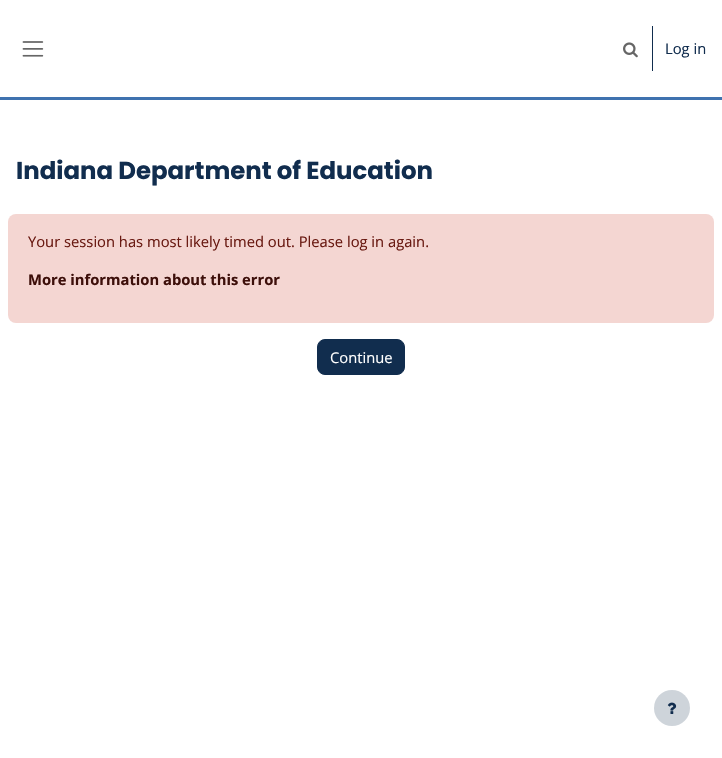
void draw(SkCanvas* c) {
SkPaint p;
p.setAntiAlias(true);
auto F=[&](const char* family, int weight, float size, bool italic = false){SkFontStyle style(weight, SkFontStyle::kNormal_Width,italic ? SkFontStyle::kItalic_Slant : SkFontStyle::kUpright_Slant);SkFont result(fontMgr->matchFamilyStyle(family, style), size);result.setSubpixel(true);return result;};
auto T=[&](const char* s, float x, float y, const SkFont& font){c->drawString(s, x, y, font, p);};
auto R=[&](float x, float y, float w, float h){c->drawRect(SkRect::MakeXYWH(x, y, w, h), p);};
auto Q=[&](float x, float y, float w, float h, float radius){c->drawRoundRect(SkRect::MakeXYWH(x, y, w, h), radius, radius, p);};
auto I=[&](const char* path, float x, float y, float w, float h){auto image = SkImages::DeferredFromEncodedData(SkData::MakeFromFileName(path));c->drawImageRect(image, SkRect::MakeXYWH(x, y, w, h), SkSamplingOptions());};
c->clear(0xffffffff);
p.setColor(0xff3f72af);
R(0,97,722,3);
I("1.png",22,41,22,16);
I("2.png",623,42,15,16);
p.setColor(0xff112d4e);
R(652,26,1,45);
auto f1 = F("Open Sans",400,14.75);
T("Log in",665,54,f1);
auto f2 = F("Poppins",700,24.4);
T("Indiana Department of Education",16,179,f2);
p.setColor(0xfff4d6d2);
Q(8,214,706,109,8);
p.setColor(0xff691911);
T("Your session has most likely timed out. Please log in again.",28,247,f1);
auto f3 = F("Open Sans",700,14.75);
p.setColor(0xff3d0f0a);
T("More information about this error",28,285,f3);
p.setColor(0xff112d4e);
c->drawRoundRect(SkRect::MakeXYWH(317.5,339.5,87,35),7.5,7.5,p);
p.setStroke(true);
p.setStrokeWidth(1);
c->drawRoundRect(SkRect::MakeXYWH(317.5,339.5,87,35),7.5,7.5,p);
p.setStroke(false);
p.setColor(0xffffffff);
T("Continue",330,363,f1);
p.setColor(0xffced4da);
c->drawCircle(672,708,18,p);
I("3.png",667,702,10,12);
}
